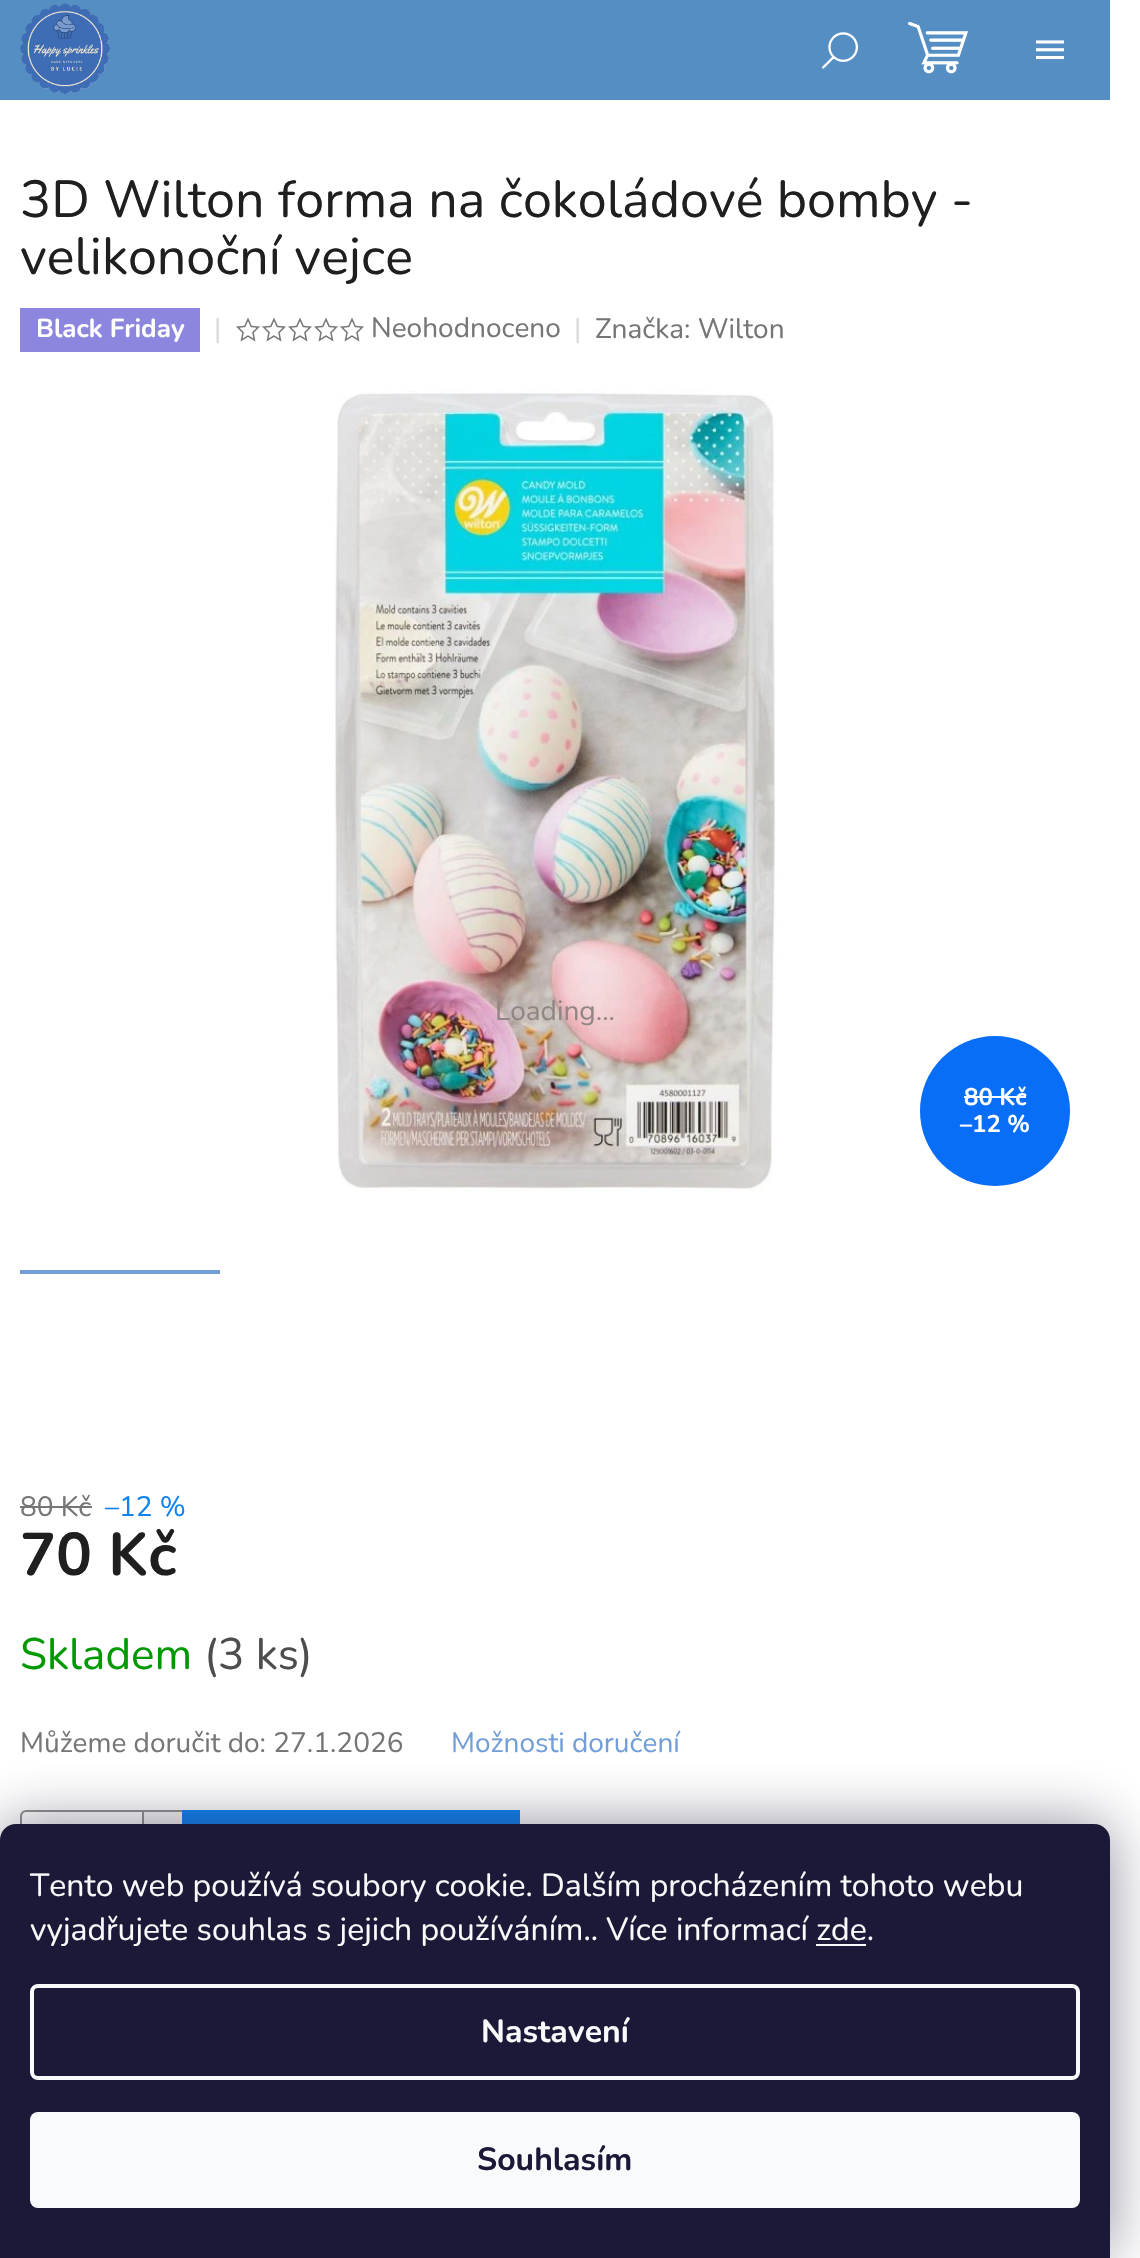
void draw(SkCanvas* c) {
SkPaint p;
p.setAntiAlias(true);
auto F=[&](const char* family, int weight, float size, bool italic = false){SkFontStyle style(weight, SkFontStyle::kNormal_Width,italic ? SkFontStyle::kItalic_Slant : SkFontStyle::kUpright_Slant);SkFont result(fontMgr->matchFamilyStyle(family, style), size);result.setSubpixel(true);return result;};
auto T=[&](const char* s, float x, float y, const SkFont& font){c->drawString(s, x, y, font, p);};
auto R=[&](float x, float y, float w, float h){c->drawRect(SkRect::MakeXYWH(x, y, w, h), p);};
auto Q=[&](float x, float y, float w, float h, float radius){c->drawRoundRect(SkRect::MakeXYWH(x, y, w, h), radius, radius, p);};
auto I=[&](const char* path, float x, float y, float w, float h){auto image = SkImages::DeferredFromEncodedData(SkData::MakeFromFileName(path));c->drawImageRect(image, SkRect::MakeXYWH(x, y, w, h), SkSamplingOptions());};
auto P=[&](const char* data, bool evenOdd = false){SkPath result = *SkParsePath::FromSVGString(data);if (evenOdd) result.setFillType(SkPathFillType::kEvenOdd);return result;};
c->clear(0xffffffff);
p.setColor(0xff558ec3);
R(0,0,1110,100);
I("1.png",822,32,36,37);
I("2.png",1036,40,28,20);
I("3.png",20,3,90,91);
I("4.png",908,21,60,53);
auto f1 = F("Nunito",400,52);
p.setColor(0xff1f1f1f);
T("3D Wilton forma na čokoládové bomby -",20,217,f1);
T("velikonoční vejce",20,274,f1);
p.setColor(0xff8c86df);
R(20,308,180,44);
auto f2 = F("Nunito",700,26);
p.setColor(0xffffffff);
T("Black Friday",36,337,f2);
auto f3 = F("Nunito",400,28);
p.setColor(0xffdadada);
T("|",214,338,f3);
I("5.png",236,317,24,25);
I("5.png",262,317,24,25);
I("5.png",288,317,24,25);
I("5.png",314,317,24,25);
I("5.png",340,317,24,25);
p.setColor(0xff767676);
T("Neohodnoceno",371,337,f3);
p.setColor(0xffdadada);
T("|",574,338,f3);
p.setColor(0xff767676);
T("Značka: Wilton",595,338,f3);
I("6.png",335,390,442,802);
p.setColor(0xff928685);
T("Loading...",495,1020,f3);
p.setColor(0xff086df7);
c->drawCircle(995,1111,75,p);
auto f4 = F("Nunito",700,24);
p.setColor(0xffffffff);
T("80 Kč",964,1105,f4);
R(964,1096,62,2);
T("–12 %",960,1132,f4);
p.setColor(0xff739ed8);
R(20,1270,200,4);
p.setColor(0xff767676);
T("80 Kč",20,1516,f3);
R(20,1506,72,2);
p.setColor(0xff1183ee);
T("–12 %",105,1516,f3);
auto f5 = F("Nunito",700,60);
p.setColor(0xff1f1f1f);
T("70 Kč",20,1575,f5);
auto f6 = F("Nunito",400,44);
p.setColor(0xff009901);
T("Skladem",20,1669,f6);
p.setColor(0xff4d4d4d);
T("(3 ks)",204,1669,f6);
p.setColor(0xff767676);
T("Můžeme doručit do: 27.1.2026",20,1752,f3);
p.setColor(0xff739ed8);
T("Možnosti doručení",451,1752,f3);
p.setColor(0xff919191);
c->drawPath(P("M26 1810h156v96h-156c-3 0-6-3-6-6v-84c0-3 3-6 6-6zm0 2h156v92h-156c-2 0-4-2-4-4v-84c0-2 2-4 4-4z",true),p);
p.setColor(0xfff6f6f6);
R(144,1812,38,12);
p.setColor(0xff919191);
R(142,1812,2,12);
p.setColor(0xff1183ee);
R(182,1810,338,14);
p.setColor(0x801b1939);
p.setMaskFilter(SkMaskFilter::MakeBlur(kNormal_SkBlurStyle, 30));
c->drawRoundRect(SkRect::MakeXYWH(0,1824,1110,434),16,16,p);
p.setMaskFilter(nullptr);
p.setColor(0xff1a1937);
c->drawPath(P("M16 1824h1078c9 0 16 7 16 16v418h-1110v-418c0-9 7-16 16-16z"),p);
auto f7 = F("Nunito",400,32);
p.setColor(0xfff8fafb);
T("Tento web používá soubory cookie. Dalším procházením tohoto webu",30,1896,f7);
T("vyjadřujete souhlas s jejich používáním.. Více informací zde.",30,1940,f7);
R(816,1944,50,2);
p.setStroke(true);
p.setStrokeWidth(4);
c->drawRoundRect(SkRect::MakeXYWH(32,1986,1046,92),6,6,p);
auto f8 = F("Nunito",700,32);
p.setStroke(false);
T("Nastavení",481,2042,f8);
Q(30,2112,1050,96,8);
p.setColor(0xff1a1937);
T("Souhlasím",477,2170,f8);
}
